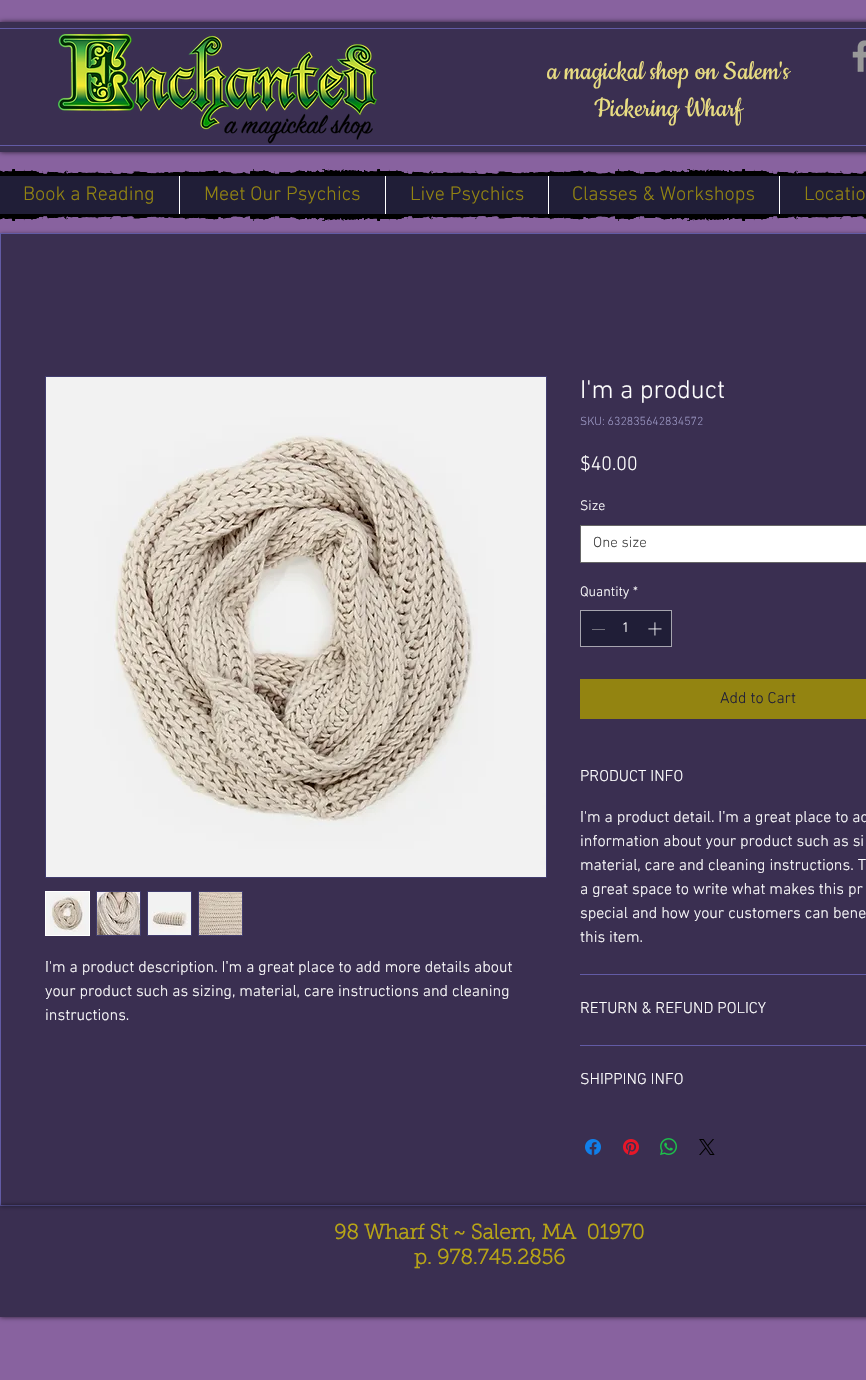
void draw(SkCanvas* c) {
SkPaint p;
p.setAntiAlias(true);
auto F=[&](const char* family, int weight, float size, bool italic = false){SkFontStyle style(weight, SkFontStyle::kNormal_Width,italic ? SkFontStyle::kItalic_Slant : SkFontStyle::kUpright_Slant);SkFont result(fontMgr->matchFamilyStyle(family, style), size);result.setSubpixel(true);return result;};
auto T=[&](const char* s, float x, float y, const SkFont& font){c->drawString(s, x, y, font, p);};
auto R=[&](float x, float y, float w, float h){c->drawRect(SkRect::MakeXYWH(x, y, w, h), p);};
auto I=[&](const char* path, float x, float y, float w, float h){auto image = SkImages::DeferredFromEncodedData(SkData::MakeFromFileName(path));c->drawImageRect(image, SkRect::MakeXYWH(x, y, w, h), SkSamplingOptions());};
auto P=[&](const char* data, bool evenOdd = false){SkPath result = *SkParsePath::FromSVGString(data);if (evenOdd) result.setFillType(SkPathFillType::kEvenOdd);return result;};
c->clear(0xff88629f);
p.setColor(0xb3000000);
p.setMaskFilter(SkMaskFilter::MakeBlur(kNormal_SkBlurStyle, 2.5));
c->drawRect(SkRect::MakeXYWH(0,22,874,130),p);
p.setMaskFilter(nullptr);
p.setColor(0xff3a2f51);
R(0,22,866,130);
p.setColor(0xff625ba5);
R(0,28,866,1);
R(0,145,866,1);
I("1.png",58,34,319,110);
I("2.png",852,40,14,32);
auto f1 = F("Cookie",400,30);
p.setColor(0xffe8dc82);
T("a magickal shop on Salem's",547,79,f1);
T("Pickering Wharf",594,116,f1);
I("3.png",0,169,866,7);
p.setColor(0xff201e37);
R(0,176,866,38);
auto f2 = F("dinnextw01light",300,20);
p.setColor(0xff938411);
T("Book a Reading",23,200,f2);
p.setColor(0xffffffff);
R(179,176,1,38);
p.setColor(0xff938411);
T("Meet Our Psychics",204,200,f2);
p.setColor(0xffffffff);
R(385,176,1,38);
p.setColor(0xff938411);
T("Live Psychics",410,200,f2);
p.setColor(0xffffffff);
R(548,176,1,38);
p.setColor(0xff938411);
T("Classes & Workshops",572,200,f2);
p.setColor(0xffffffff);
R(779,176,1,38);
p.setColor(0xff938411);
T("Locatio",804,200,f2);
I("4.png",0,214,866,7);
p.setColor(0x99000000);
p.setMaskFilter(SkMaskFilter::MakeBlur(kNormal_SkBlurStyle, 2));
c->drawRect(SkRect::MakeXYWH(0,234,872,973),p);
p.setMaskFilter(nullptr);
p.setColor(0xff3a2f51);
c->drawRect(SkRect::MakeXYWH(.5,233.5,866,972),p);
p.setStroke(true);
p.setStrokeWidth(1);
p.setColor(0xff625ba5);
c->drawRect(SkRect::MakeXYWH(.5,233.5,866,972),p);
p.setColor(0xff413c6e);
c->drawRect(SkRect::MakeXYWH(45.5,376.5,501,501),p);
I("5.png",46,377,500,500);
p.setColor(0xffffffff);
c->drawRect(SkRect::MakeXYWH(45.5,891.5,44,44),p);
I("6.png",46,892,43,43);
p.setColor(0xff413c6e);
c->drawRect(SkRect::MakeXYWH(96.5,891.5,44,44),p);
I("7.png",97,892,43,43);
c->drawRect(SkRect::MakeXYWH(147.5,891.5,44,44),p);
I("8.png",148,892,43,43);
c->drawRect(SkRect::MakeXYWH(198.5,891.5,44,44),p);
I("9.png",199,892,43,43);
auto f3 = F("dinnextw01light",300,16);
p.setStroke(false);
p.setColor(0xffffffff);
T("I'm a product description. I'm a great place to add more details about",45,972,f3);
T("your product such as sizing, material, care instructions and cleaning",45,996,f3);
T("instructions.",45,1020,f3);
auto f4 = F("dinnextw01light",300,26);
T("I'm a product",580,398,f4);
auto f5 = F("dinnextw01light",300,12);
p.setColor(0xff9b97c3);
T("SKU: 632835642834572",580,425,f5);
p.setColor(0xffffffff);
T("$40.00",580,470,f2);
auto f6 = F("dinnextw01light",300,14);
T("Size",580,510,f6);
c->drawRect(SkRect::MakeXYWH(580.5,525.5,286,37),p);
p.setStroke(true);
p.setColor(0xff666666);
c->drawRect(SkRect::MakeXYWH(580.5,525.5,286,37),p);
auto f7 = F("dinnextw01light",300,15);
p.setStroke(false);
p.setColor(0xff444444);
T("One size",593,547,f7);
p.setColor(0xffffffff);
T("Quantity",580,596,f6);
T("*",633,596,f6);
p.setColor(0xff201e37);
c->drawRect(SkRect::MakeXYWH(580.5,610.5,91,36),p);
p.setStroke(true);
p.setColor(0xffa6a5af);
c->drawRect(SkRect::MakeXYWH(580.5,610.5,91,36),p);
p.setStroke(false);
p.setColor(0xff74737f);
R(592,629,13,1);
p.setColor(0xffffffff);
T("1",622,632,f6);
I("10.png",648,622,14,14);
p.setColor(0xff938411);
R(580,679,286,40);
p.setColor(0xff201e37);
T("Add to Cart",720,703,f3);
p.setColor(0xff625ba5);
R(580,974,286,1);
p.setColor(0xffffffff);
T("PRODUCT INFO",580,781,f3);
T("I'm a product detail. I'm a great place to ad",580,822,f3);
T("information about your product such as si",580,846,f3);
T("material, care and cleaning instructions. T",580,870,f3);
T("a great space to write what makes this pr",580,894,f3);
T("special and how your customers can bene",580,918,f3);
T("this item.",580,942,f3);
p.setColor(0xff625ba5);
R(580,1045,286,1);
p.setColor(0xffffffff);
T("RETURN & REFUND POLICY",580,1013,f3);
T("SHIPPING INFO",580,1084,f3);
I("11.png",585,1139,16,16);
I("12.png",623,1139,16,16);
I("13.png",660,1138,17,17);
I("14.png",699,1139,16,16);
c->save();
c->clipPath(P("M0 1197h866v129h-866zm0 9h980v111h-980z",true),true);
p.setColor(0xb3000000);
p.setMaskFilter(SkMaskFilter::MakeBlur(kNormal_SkBlurStyle, 2.5));
c->drawRect(SkRect::MakeXYWH(0,1206,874,111),p);
p.setMaskFilter(nullptr);
c->restore();
p.setColor(0xbf201e37);
R(0,1206,866,111);
auto f8 = F("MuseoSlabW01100",700,21);
p.setColor(0xffb8a516);
T("98 Wharf St ~ Salem, MA  01970",334,1239,f8);
T("p. 978.745.2856",414,1264,f8);
}
